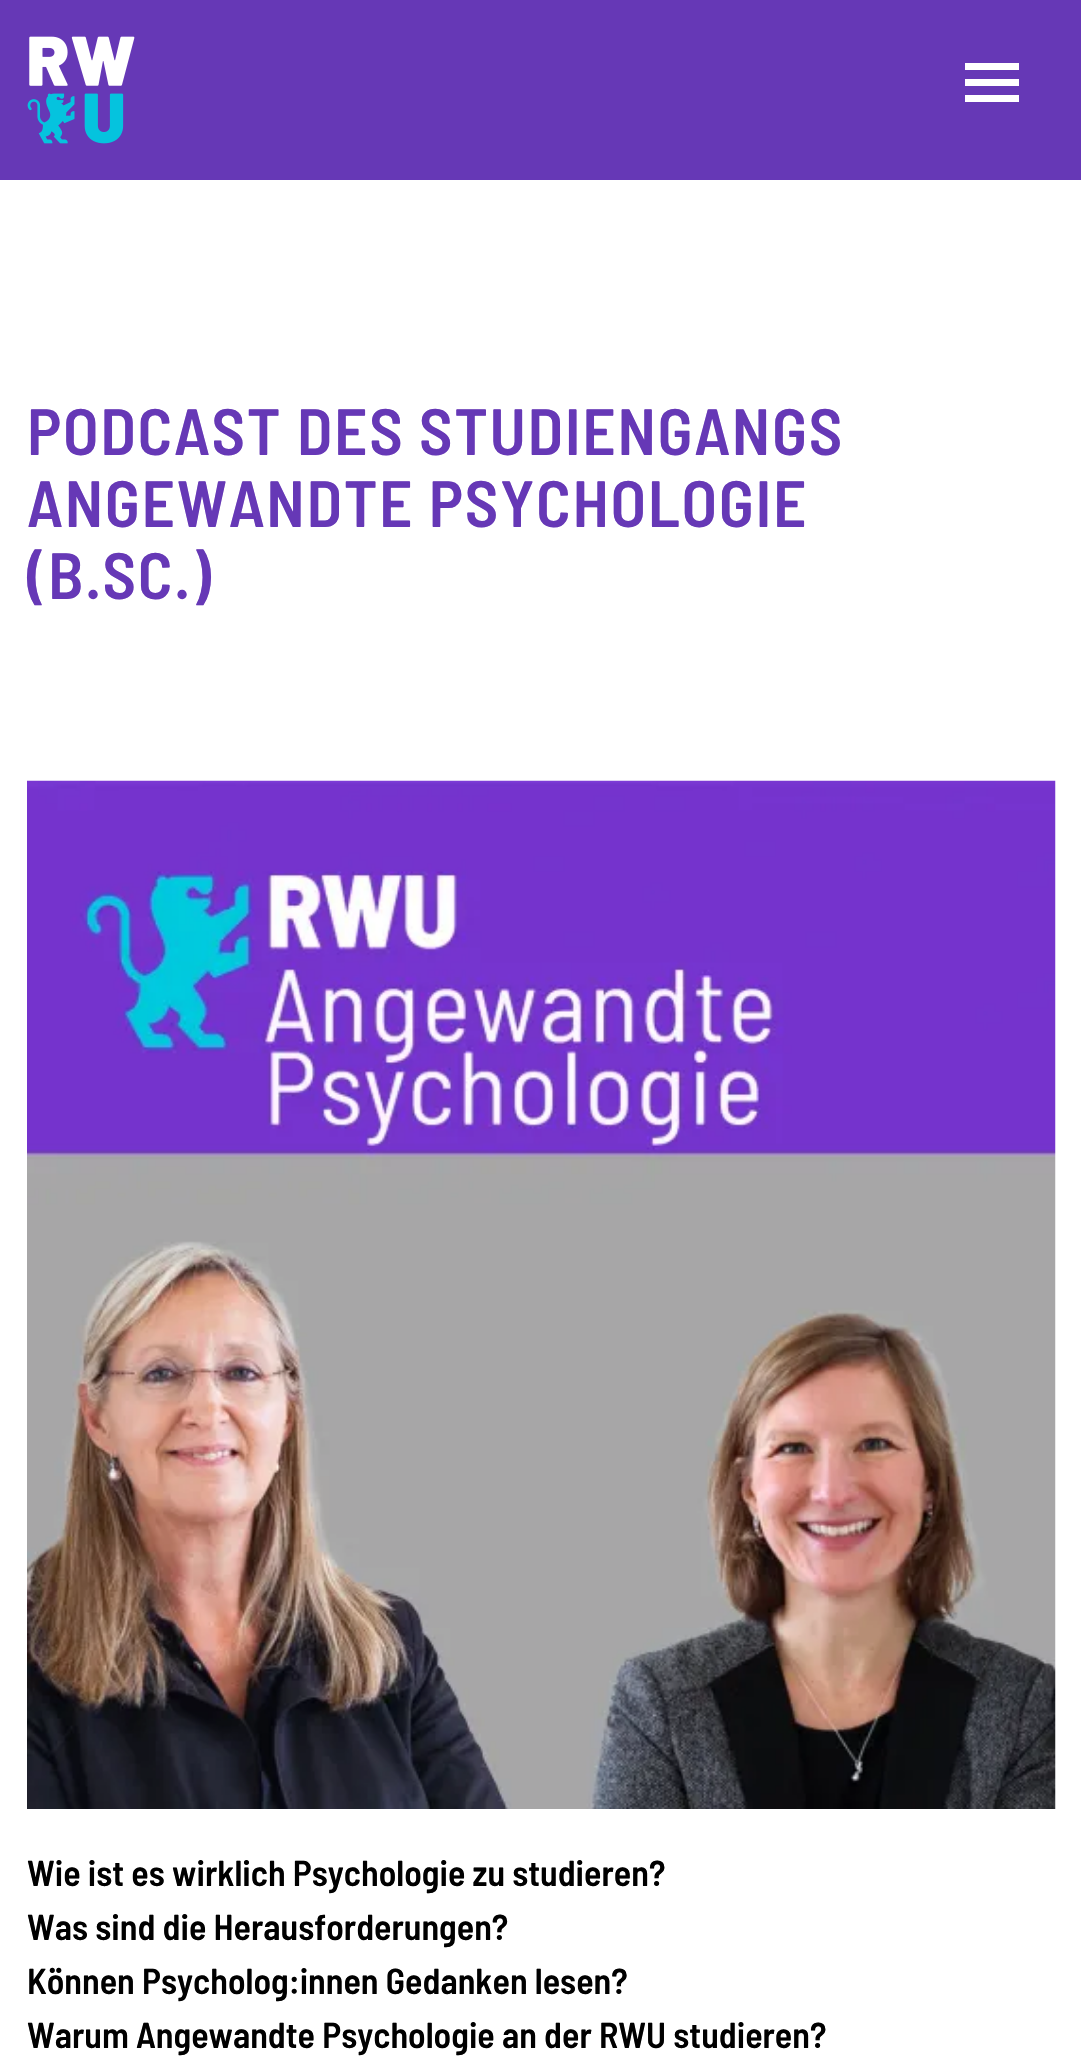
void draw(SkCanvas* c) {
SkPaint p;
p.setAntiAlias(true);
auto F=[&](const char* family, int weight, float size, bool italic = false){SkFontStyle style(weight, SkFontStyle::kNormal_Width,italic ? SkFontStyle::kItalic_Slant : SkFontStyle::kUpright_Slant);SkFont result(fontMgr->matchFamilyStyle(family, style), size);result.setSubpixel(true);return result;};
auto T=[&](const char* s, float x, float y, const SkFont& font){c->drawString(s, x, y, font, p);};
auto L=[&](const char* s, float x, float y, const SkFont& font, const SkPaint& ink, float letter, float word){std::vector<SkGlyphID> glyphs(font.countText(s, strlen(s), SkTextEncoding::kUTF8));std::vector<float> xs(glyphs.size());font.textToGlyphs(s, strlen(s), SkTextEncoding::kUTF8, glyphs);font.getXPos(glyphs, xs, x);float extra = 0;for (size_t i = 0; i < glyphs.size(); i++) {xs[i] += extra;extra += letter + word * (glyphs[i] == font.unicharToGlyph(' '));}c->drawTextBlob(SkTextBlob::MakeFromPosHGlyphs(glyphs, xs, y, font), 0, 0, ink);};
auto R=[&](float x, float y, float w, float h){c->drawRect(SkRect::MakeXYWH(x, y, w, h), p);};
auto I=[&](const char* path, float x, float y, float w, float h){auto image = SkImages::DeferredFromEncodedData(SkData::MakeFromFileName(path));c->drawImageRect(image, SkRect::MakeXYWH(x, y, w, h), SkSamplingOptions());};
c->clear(0xffffffff);
p.setColor(0xff6638b6);
R(0,0,1081,180);
I("1.png",27,36,108,108);
p.setColor(0xffffffff);
R(965,63,54,7);
R(965,79,54,7);
R(965,95,54,7);
auto f1 = F("Barlow Semi Condensed",600,65.4);
p.setColor(0xff6638b6);
L("PODCAST DES STUDIENGANGS",27,455,f1,p,1.6,0);
L("ANGEWANDTE PSYCHOLOGIE",27,527,f1,p,1.6,0);
L("(B.SC.)",27,599,f1,p,1.6,0);
I("2.png",27,780,1029,1029);
auto f2 = F("Barlow Semi Condensed",600,36);
p.setColor(0xff000000);
T("Wie ist es wirklich Psychologie zu studieren?",27,1886,f2);
T("Was sind die Herausforderungen?",27,1940,f2);
T("Können Psycholog:innen Gedanken lesen?",27,1994,f2);
T("Warum Angewandte Psychologie an der RWU studieren?",27,2048,f2);
}
